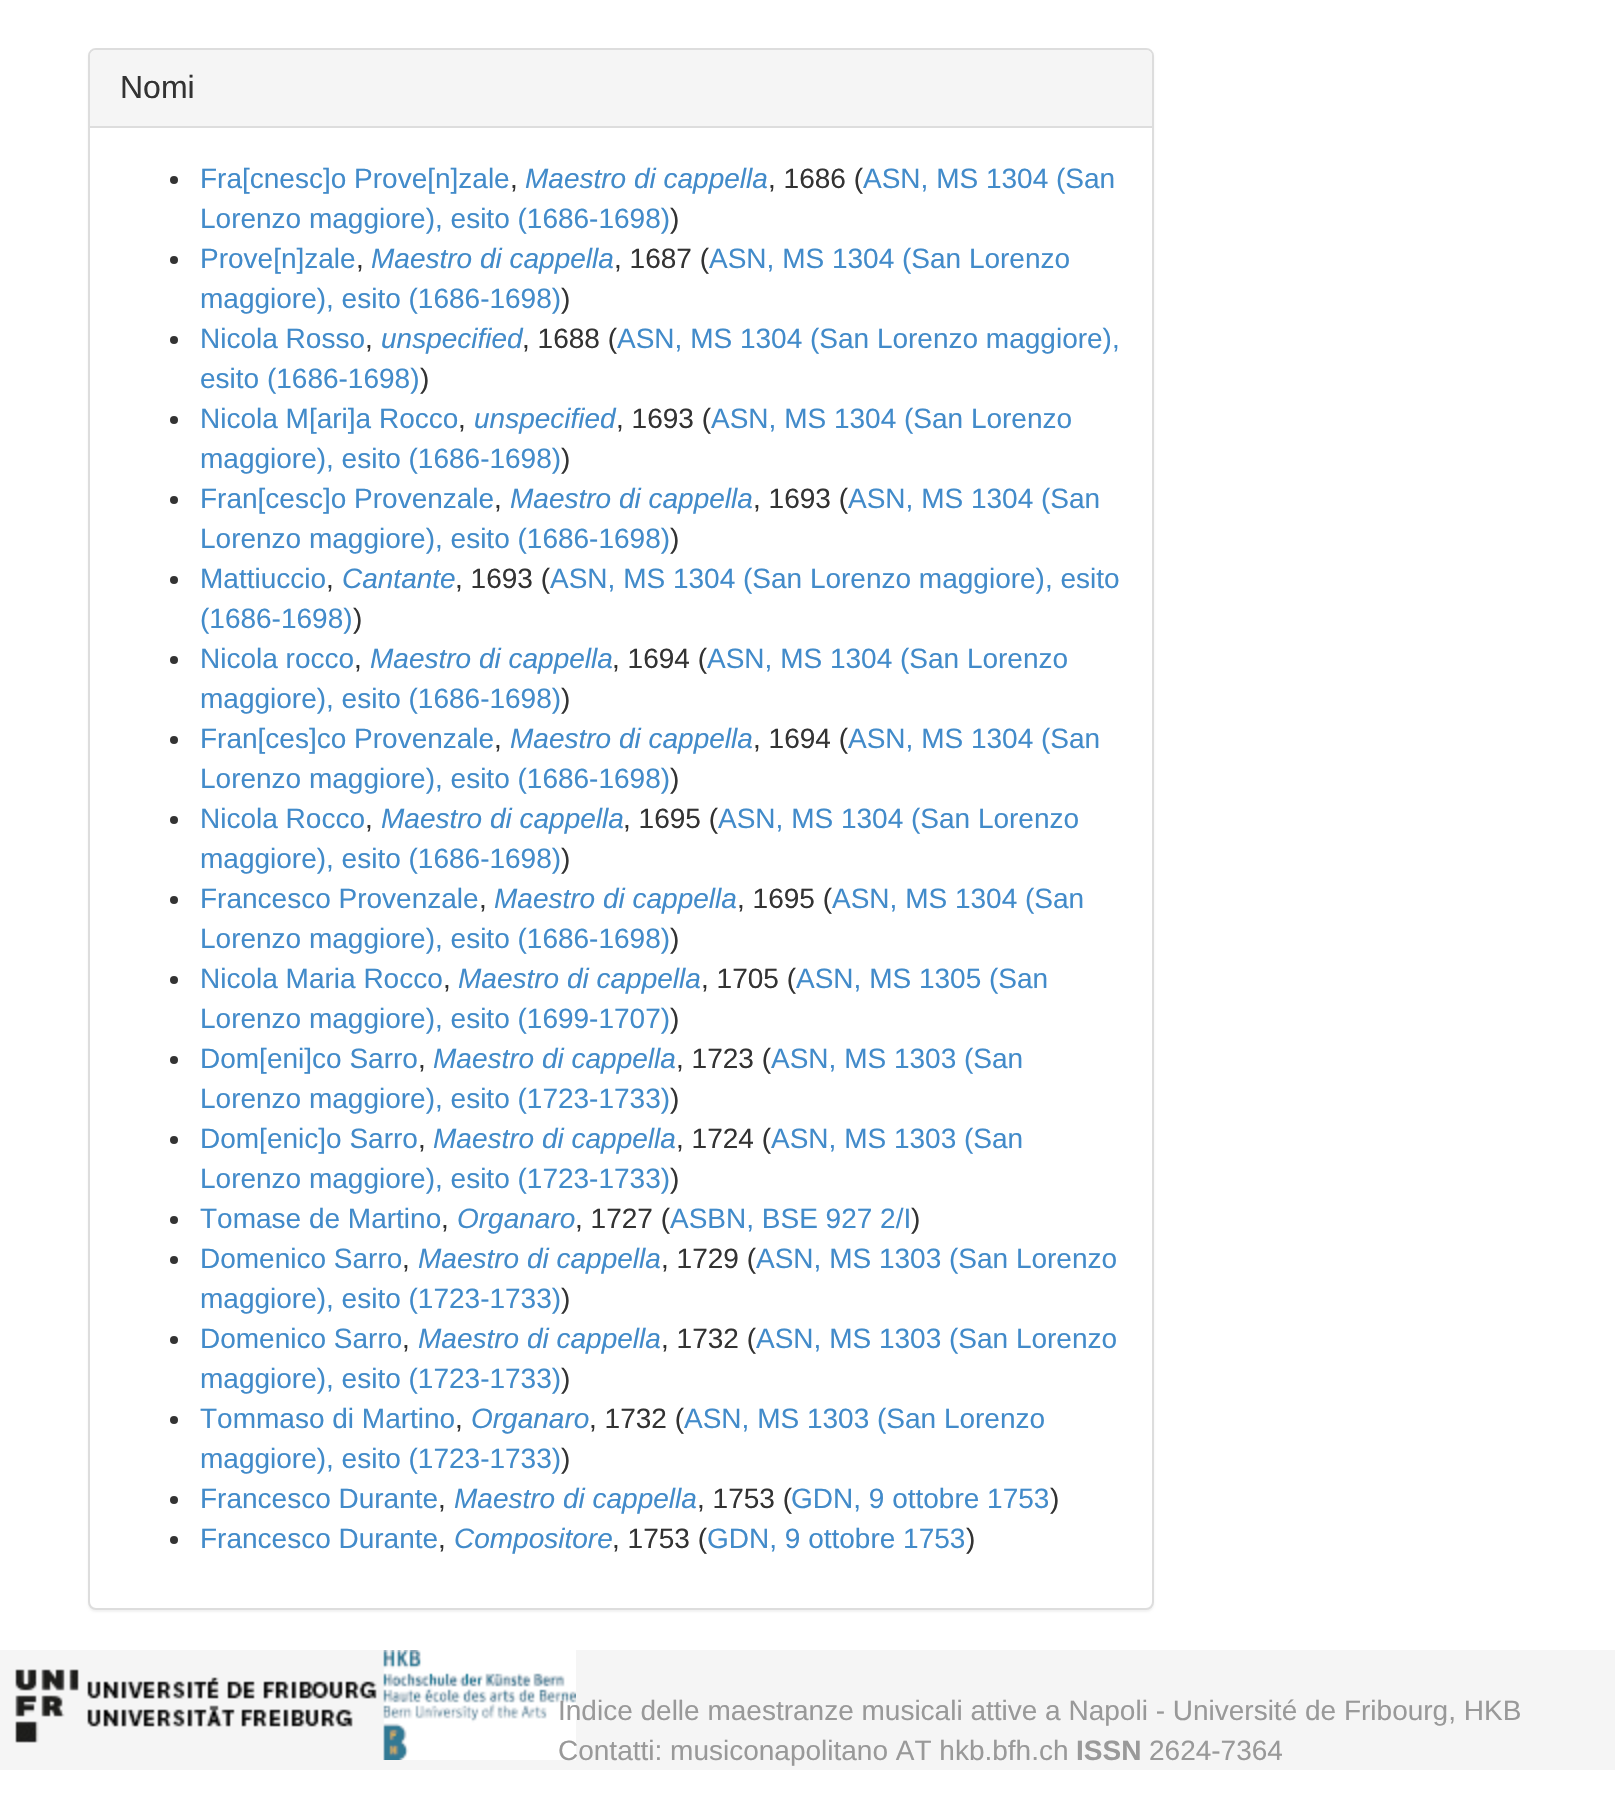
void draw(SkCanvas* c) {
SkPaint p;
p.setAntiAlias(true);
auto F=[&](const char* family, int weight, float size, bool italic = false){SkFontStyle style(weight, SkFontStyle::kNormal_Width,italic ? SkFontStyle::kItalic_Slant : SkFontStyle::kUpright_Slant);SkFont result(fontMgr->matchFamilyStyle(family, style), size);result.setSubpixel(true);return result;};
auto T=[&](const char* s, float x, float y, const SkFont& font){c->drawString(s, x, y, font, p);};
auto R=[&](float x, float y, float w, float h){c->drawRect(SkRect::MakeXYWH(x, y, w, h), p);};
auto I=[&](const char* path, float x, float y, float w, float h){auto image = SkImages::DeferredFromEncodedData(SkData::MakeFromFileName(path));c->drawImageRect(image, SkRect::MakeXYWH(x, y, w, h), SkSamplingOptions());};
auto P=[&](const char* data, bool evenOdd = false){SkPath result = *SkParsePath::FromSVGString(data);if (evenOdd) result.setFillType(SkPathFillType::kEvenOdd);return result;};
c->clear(0xffffffff);
p.setColor(0x0d000000);
p.setMaskFilter(SkMaskFilter::MakeBlur(kNormal_SkBlurStyle, 1));
c->drawRoundRect(SkRect::MakeXYWH(88,50,1066,1562),8,8,p);
p.setMaskFilter(nullptr);
p.setColor(0xffffffff);
c->drawRoundRect(SkRect::MakeXYWH(89,49,1064,1560),7,7,p);
p.setStroke(true);
p.setStrokeWidth(2);
p.setColor(0xffdddddd);
c->drawRoundRect(SkRect::MakeXYWH(89,49,1064,1560),7,7,p);
p.setStroke(false);
p.setColor(0xfff5f5f5);
c->drawPath(P("M96 50h1050c3.5 0 6 2.5 6 6v72h-1062v-72c0-3.5 2.5-6 6-6z"),p);
p.setColor(0xffdddddd);
R(90,126,1062,2);
auto f1 = F("Liberation Sans",400,32);
p.setColor(0xff333333);
T("Nomi",120,98,f1);
c->drawCircle(174,180,4,p);
auto f2 = F("Liberation Sans",400,28);
p.setColor(0xff428bca);
T("Fra[cnesc]o Prove[n]zale",200,188,f2);
auto f3 = F("Liberation Sans",400,28,true);
T("Maestro di cappella",525,188,f3);
p.setColor(0xff333333);
T(", 1686 (",768,188,f2);
p.setColor(0xff428bca);
T("ASN, MS 1304 (San",863,188,f2);
p.setColor(0xff333333);
T(",",510,188,f2);
p.setColor(0xff428bca);
T("Lorenzo maggiore), esito (1686-1698)",200,228,f2);
p.setColor(0xff333333);
T(")",670,228,f2);
c->drawCircle(174,260,4,p);
p.setColor(0xff428bca);
T("Prove[n]zale",200,268,f2);
T("Maestro di cappella",371,268,f3);
p.setColor(0xff333333);
T(", 1687 (",614,268,f2);
p.setColor(0xff428bca);
T("ASN, MS 1304 (San Lorenzo",709,268,f2);
p.setColor(0xff333333);
T(",",356,268,f2);
p.setColor(0xff428bca);
T("maggiore), esito (1686-1698)",200,308,f2);
p.setColor(0xff333333);
T(")",561,308,f2);
c->drawCircle(174,340,4,p);
p.setColor(0xff428bca);
T("Nicola Rosso",200,348,f2);
T("unspecified",381,348,f3);
p.setColor(0xff333333);
T(", 1688 (",522,348,f2);
p.setColor(0xff428bca);
T("ASN, MS 1304 (San Lorenzo maggiore),",617,348,f2);
p.setColor(0xff333333);
T(",",365,348,f2);
p.setColor(0xff428bca);
T("esito (1686-1698)",200,388,f2);
p.setColor(0xff333333);
T(")",420,388,f2);
c->drawCircle(174,420,4,p);
p.setColor(0xff428bca);
T("Nicola M[ari]a Rocco",200,428,f2);
T("unspecified",474,428,f3);
p.setColor(0xff333333);
T(", 1693 (",616,428,f2);
p.setColor(0xff428bca);
T("ASN, MS 1304 (San Lorenzo",711,428,f2);
p.setColor(0xff333333);
T(",",458,428,f2);
p.setColor(0xff428bca);
T("maggiore), esito (1686-1698)",200,468,f2);
p.setColor(0xff333333);
T(")",561,468,f2);
c->drawCircle(174,500,4,p);
p.setColor(0xff428bca);
T("Fran[cesc]o Provenzale",200,508,f2);
T("Maestro di cappella",510,508,f3);
p.setColor(0xff333333);
T(", 1693 (",753,508,f2);
p.setColor(0xff428bca);
T("ASN, MS 1304 (San",848,508,f2);
p.setColor(0xff333333);
T(",",494,508,f2);
p.setColor(0xff428bca);
T("Lorenzo maggiore), esito (1686-1698)",200,548,f2);
p.setColor(0xff333333);
T(")",670,548,f2);
c->drawCircle(174,580,4,p);
p.setColor(0xff428bca);
T("Mattiuccio",200,588,f2);
T("Cantante",342,588,f3);
p.setColor(0xff333333);
T(", 1693 (",455,588,f2);
p.setColor(0xff428bca);
T("ASN, MS 1304 (San Lorenzo maggiore), esito",550,588,f2);
p.setColor(0xff333333);
T(",",326,588,f2);
p.setColor(0xff428bca);
T("(1686-1698)",200,628,f2);
p.setColor(0xff333333);
T(")",353,628,f2);
c->drawCircle(174,660,4,p);
p.setColor(0xff428bca);
T("Nicola rocco",200,668,f2);
T("Maestro di cappella",370,668,f3);
p.setColor(0xff333333);
T(", 1694 (",612,668,f2);
p.setColor(0xff428bca);
T("ASN, MS 1304 (San Lorenzo",707,668,f2);
p.setColor(0xff333333);
T(",",354,668,f2);
p.setColor(0xff428bca);
T("maggiore), esito (1686-1698)",200,708,f2);
p.setColor(0xff333333);
T(")",561,708,f2);
c->drawCircle(174,740,4,p);
p.setColor(0xff428bca);
T("Fran[ces]co Provenzale",200,748,f2);
T("Maestro di cappella",510,748,f3);
p.setColor(0xff333333);
T(", 1694 (",753,748,f2);
p.setColor(0xff428bca);
T("ASN, MS 1304 (San",848,748,f2);
p.setColor(0xff333333);
T(",",494,748,f2);
p.setColor(0xff428bca);
T("Lorenzo maggiore), esito (1686-1698)",200,788,f2);
p.setColor(0xff333333);
T(")",670,788,f2);
c->drawCircle(174,820,4,p);
p.setColor(0xff428bca);
T("Nicola Rocco",200,828,f2);
T("Maestro di cappella",381,828,f3);
p.setColor(0xff333333);
T(", 1695 (",623,828,f2);
p.setColor(0xff428bca);
T("ASN, MS 1304 (San Lorenzo",718,828,f2);
p.setColor(0xff333333);
T(",",365,828,f2);
p.setColor(0xff428bca);
T("maggiore), esito (1686-1698)",200,868,f2);
p.setColor(0xff333333);
T(")",561,868,f2);
c->drawCircle(174,900,4,p);
p.setColor(0xff428bca);
T("Francesco Provenzale",200,908,f2);
T("Maestro di cappella",494,908,f3);
p.setColor(0xff333333);
T(", 1695 (",737,908,f2);
p.setColor(0xff428bca);
T("ASN, MS 1304 (San",832,908,f2);
p.setColor(0xff333333);
T(",",479,908,f2);
p.setColor(0xff428bca);
T("Lorenzo maggiore), esito (1686-1698)",200,948,f2);
p.setColor(0xff333333);
T(")",670,948,f2);
c->drawCircle(174,980,4,p);
p.setColor(0xff428bca);
T("Nicola Maria Rocco",200,988,f2);
T("Maestro di cappella",458,988,f3);
p.setColor(0xff333333);
T(", 1705 (",701,988,f2);
p.setColor(0xff428bca);
T("ASN, MS 1305 (San",796,988,f2);
p.setColor(0xff333333);
T(",",443,988,f2);
p.setColor(0xff428bca);
T("Lorenzo maggiore), esito (1699-1707)",200,1028,f2);
p.setColor(0xff333333);
T(")",670,1028,f2);
c->drawCircle(174,1060,4,p);
p.setColor(0xff428bca);
T("Dom[eni]co Sarro",200,1068,f2);
T("Maestro di cappella",433,1068,f3);
p.setColor(0xff333333);
T(", 1723 (",676,1068,f2);
p.setColor(0xff428bca);
T("ASN, MS 1303 (San",771,1068,f2);
p.setColor(0xff333333);
T(",",418,1068,f2);
p.setColor(0xff428bca);
T("Lorenzo maggiore), esito (1723-1733)",200,1108,f2);
p.setColor(0xff333333);
T(")",670,1108,f2);
c->drawCircle(174,1140,4,p);
p.setColor(0xff428bca);
T("Dom[enic]o Sarro",200,1148,f2);
T("Maestro di cappella",433,1148,f3);
p.setColor(0xff333333);
T(", 1724 (",676,1148,f2);
p.setColor(0xff428bca);
T("ASN, MS 1303 (San",771,1148,f2);
p.setColor(0xff333333);
T(",",418,1148,f2);
p.setColor(0xff428bca);
T("Lorenzo maggiore), esito (1723-1733)",200,1188,f2);
p.setColor(0xff333333);
T(")",670,1188,f2);
c->drawCircle(174,1220,4,p);
p.setColor(0xff428bca);
T("Tomase de Martino",200,1228,f2);
T("Organaro",457,1228,f3);
p.setColor(0xff333333);
T(", 1727 (",575,1228,f2);
p.setColor(0xff428bca);
T("ASBN, BSE 927 2/I",670,1228,f2);
p.setColor(0xff333333);
T(")",911,1228,f2);
T(",",441,1228,f2);
c->drawCircle(174,1260,4,p);
p.setColor(0xff428bca);
T("Domenico Sarro",200,1268,f2);
T("Maestro di cappella",418,1268,f3);
p.setColor(0xff333333);
T(", 1729 (",661,1268,f2);
p.setColor(0xff428bca);
T("ASN, MS 1303 (San Lorenzo",756,1268,f2);
p.setColor(0xff333333);
T(",",402,1268,f2);
p.setColor(0xff428bca);
T("maggiore), esito (1723-1733)",200,1308,f2);
p.setColor(0xff333333);
T(")",561,1308,f2);
c->drawCircle(174,1340,4,p);
p.setColor(0xff428bca);
T("Domenico Sarro",200,1348,f2);
T("Maestro di cappella",418,1348,f3);
p.setColor(0xff333333);
T(", 1732 (",661,1348,f2);
p.setColor(0xff428bca);
T("ASN, MS 1303 (San Lorenzo",756,1348,f2);
p.setColor(0xff333333);
T(",",402,1348,f2);
p.setColor(0xff428bca);
T("maggiore), esito (1723-1733)",200,1388,f2);
p.setColor(0xff333333);
T(")",561,1388,f2);
c->drawCircle(174,1420,4,p);
p.setColor(0xff428bca);
T("Tommaso di Martino",200,1428,f2);
T("Organaro",471,1428,f3);
p.setColor(0xff333333);
T(", 1732 (",589,1428,f2);
p.setColor(0xff428bca);
T("ASN, MS 1303 (San Lorenzo",684,1428,f2);
p.setColor(0xff333333);
T(",",455,1428,f2);
p.setColor(0xff428bca);
T("maggiore), esito (1723-1733)",200,1468,f2);
p.setColor(0xff333333);
T(")",561,1468,f2);
c->drawCircle(174,1500,4,p);
p.setColor(0xff428bca);
T("Francesco Durante",200,1508,f2);
T("Maestro di cappella",454,1508,f3);
p.setColor(0xff333333);
T(", 1753 (",697,1508,f2);
p.setColor(0xff428bca);
T("GDN, 9 ottobre 1753",791,1508,f2);
p.setColor(0xff333333);
T(")",1050,1508,f2);
T(",",438,1508,f2);
c->drawCircle(174,1540,4,p);
p.setColor(0xff428bca);
T("Francesco Durante",200,1548,f2);
T("Compositore",454,1548,f3);
p.setColor(0xff333333);
T(", 1753 (",612,1548,f2);
p.setColor(0xff428bca);
T("GDN, 9 ottobre 1753",707,1548,f2);
p.setColor(0xff333333);
T(")",966,1548,f2);
T(",",438,1548,f2);
p.setColor(0xfff5f5f5);
R(0,1650,1615,120);
I("1.png",15,1650,561,110);
p.setColor(0xff999999);
T("Indice delle maestranze musicali attive a Napoli - Université de Fribourg, HKB",558,1720,f2);
T("Contatti: musiconapolitano AT hkb.bfh.ch",558,1760,f2);
auto f4 = F("Liberation Sans",700,28);
T("ISSN",1076,1760,f4);
T("2624-7364",1149,1760,f2);
}
